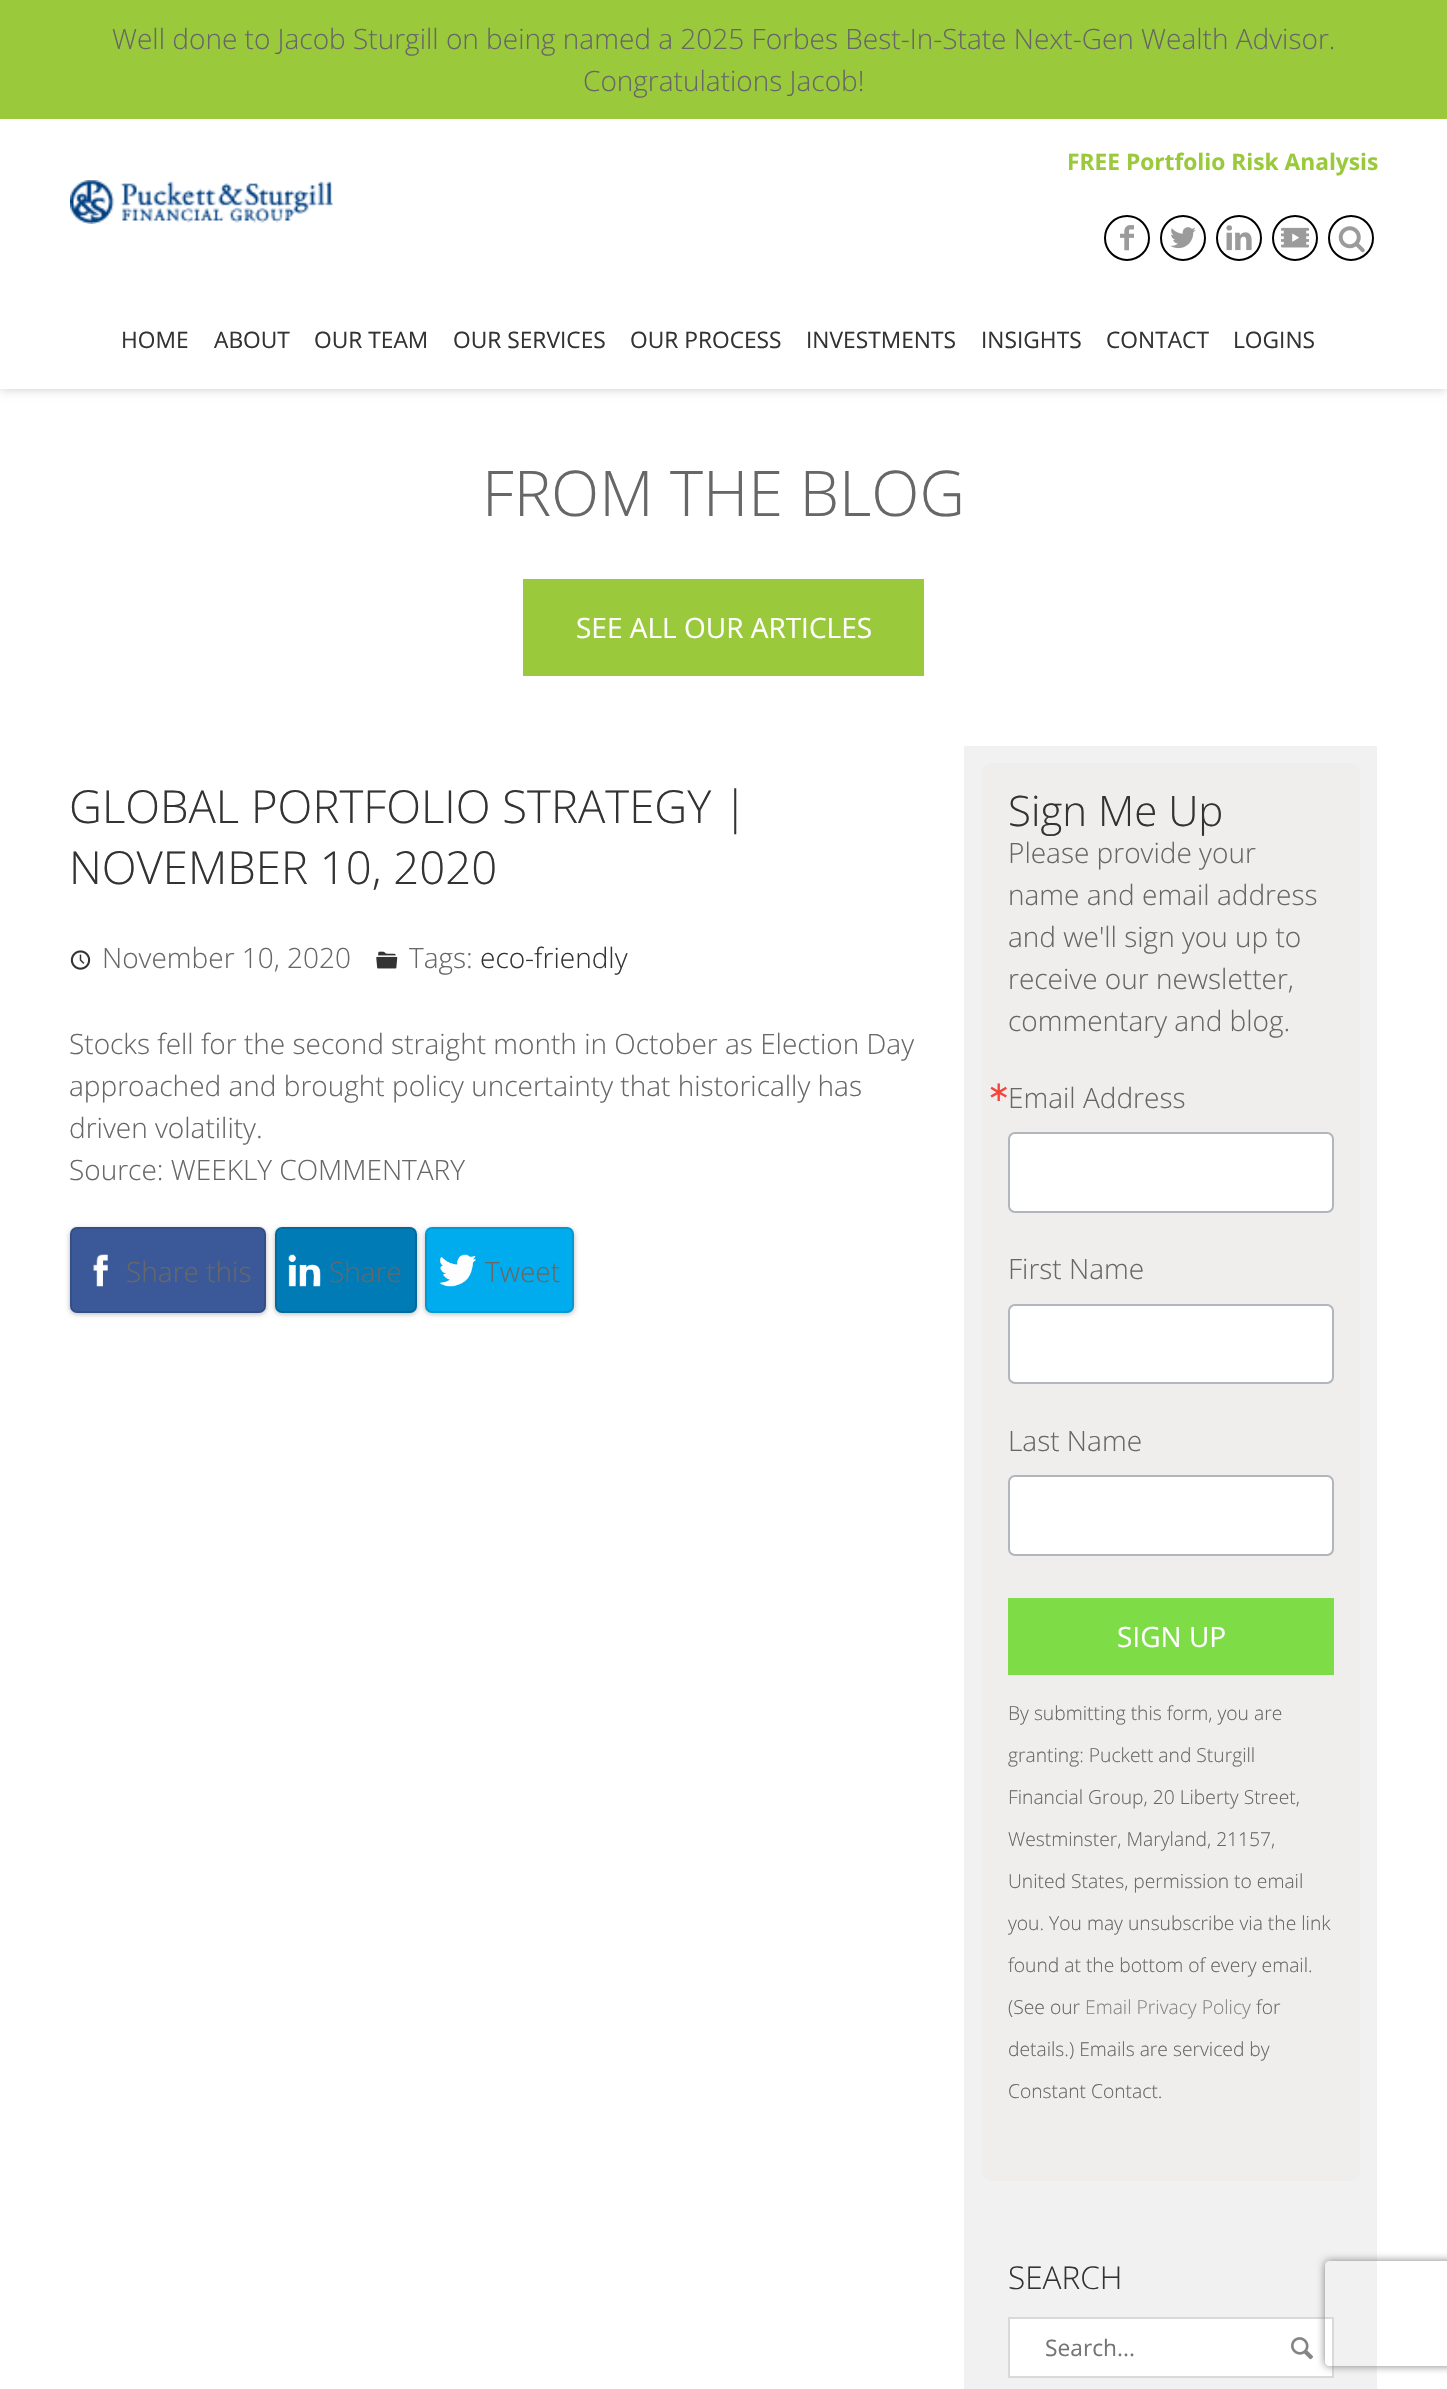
void draw(SkCanvas* c) {
SkPaint p;
p.setAntiAlias(true);
auto F=[&](const char* family, int weight, float size, bool italic = false){SkFontStyle style(weight, SkFontStyle::kNormal_Width,italic ? SkFontStyle::kItalic_Slant : SkFontStyle::kUpright_Slant);SkFont result(fontMgr->matchFamilyStyle(family, style), size);result.setSubpixel(true);return result;};
auto T=[&](const char* s, float x, float y, const SkFont& font){c->drawString(s, x, y, font, p);};
auto R=[&](float x, float y, float w, float h){c->drawRect(SkRect::MakeXYWH(x, y, w, h), p);};
auto Q=[&](float x, float y, float w, float h, float radius){c->drawRoundRect(SkRect::MakeXYWH(x, y, w, h), radius, radius, p);};
auto I=[&](const char* path, float x, float y, float w, float h){auto image = SkImages::DeferredFromEncodedData(SkData::MakeFromFileName(path));c->drawImageRect(image, SkRect::MakeXYWH(x, y, w, h), SkSamplingOptions());};
auto P=[&](const char* data, bool evenOdd = false){SkPath result = *SkParsePath::FromSVGString(data);if (evenOdd) result.setFillType(SkPathFillType::kEvenOdd);return result;};
c->clear(0xffffffff);
p.setColor(0x33000000);
p.setMaskFilter(SkMaskFilter::MakeBlur(kNormal_SkBlurStyle, 5));
c->drawRect(SkRect::MakeXYWH(0,119,1447,270),p);
p.setMaskFilter(nullptr);
p.setColor(0xff9aca3c);
R(0,0,1447,119);
auto f1 = F("Open Sans",300,28);
p.setColor(0xff676767);
T("Well done to Jacob Sturgill on being named a 2025 Forbes Best-In-State Next-Gen Wealth Advisor.",112,49,f1);
T("Congratulations Jacob!",583,91,f1);
p.setColor(0xffffffff);
R(0,119,1447,270);
auto f2 = F("Open Sans",700,22.75);
p.setColor(0xff9aca3c);
T("FREE Portfolio Risk Analysis",1067,170,f2);
p.setStroke(true);
p.setStrokeWidth(2);
p.setColor(0xff000000);
c->drawCircle(1127,238,22,p);
I("1.png",1120,225,14,26);
c->drawCircle(1183,238,22,p);
I("2.png",1170,227,26,22);
c->drawCircle(1239,238,22,p);
I("3.png",1226,225,26,26);
c->drawCircle(1295,238,22,p);
I("4.png",1281,227,28,21);
c->drawCircle(1351,238,22,p);
I("5.png",1338,226,27,27);
I("6.png",70,180,263,44);
auto f3 = F("Open Sans",400,22.75);
p.setStroke(false);
p.setColor(0xff333333);
T("HOME",121,348,f3);
T("ABOUT",214,348,f3);
T("OUR TEAM",314,348,f3);
T("OUR SERVICES",453,348,f3);
T("OUR PROCESS",630,348,f3);
T("INVESTMENTS",806,348,f3);
T("INSIGHTS",981,348,f3);
T("CONTACT",1106,348,f3);
T("LOGINS",1233,348,f3);
auto f4 = F("Open Sans",300,63);
p.setColor(0xff676767);
T("FROM THE BLOG",482,516,f4);
p.setColor(0xff9aca3c);
R(523,579,401,97);
auto f5 = F("Open Sans",400,28);
p.setColor(0xffffffff);
T("SEE ALL OUR ARTICLES",576,638,f5);
auto f6 = F("Open Sans",300,45.5);
p.setColor(0xff333333);
T("GLOBAL PORTFOLIO STRATEGY |",69,823,f6);
T("NOVEMBER 10, 2020",69,884,f6);
I("7.png",70,950,21,20);
p.setColor(0xff676767);
T("November 10, 2020",102,968,f1);
I("8.png",376,951,22,18);
T("Tags:",409,968,f1);
p.setColor(0xff333333);
T("eco-friendly",480,968,f1);
p.setColor(0xff676767);
T("Stocks fell for the second straight month in October as Election Day",69,1054,f1);
T("approached and brought policy uncertainty that historically has",69,1096,f1);
T("driven volatility.",69,1138,f1);
T("Source: WEEKLY COMMENTARY",69,1180,f1);
p.setColor(0x26000000);
p.setMaskFilter(SkMaskFilter::MakeBlur(kNormal_SkBlurStyle, 2.5));
c->drawRoundRect(SkRect::MakeXYWH(70,1229,196,85),7,7,p);
p.setMaskFilter(nullptr);
p.setMaskFilter(SkMaskFilter::MakeBlur(kNormal_SkBlurStyle, 2.5));
c->drawRoundRect(SkRect::MakeXYWH(70,1229,196,85),7,7,p);
p.setMaskFilter(nullptr);
p.setColor(0xff3b5998);
c->drawRoundRect(SkRect::MakeXYWH(71,1228,194,84),6,6,p);
p.setStroke(true);
p.setColor(0xff344e86);
c->drawRoundRect(SkRect::MakeXYWH(71,1228,194,84),6,6,p);
I("9.png",93,1254,15,33);
p.setStroke(false);
p.setColor(0xff676767);
T("Share this",126,1282,f1);
p.setColor(0x26000000);
p.setMaskFilter(SkMaskFilter::MakeBlur(kNormal_SkBlurStyle, 2.5));
c->drawRoundRect(SkRect::MakeXYWH(275,1229,142,85),7,7,p);
p.setMaskFilter(nullptr);
p.setMaskFilter(SkMaskFilter::MakeBlur(kNormal_SkBlurStyle, 2.5));
c->drawRoundRect(SkRect::MakeXYWH(275,1229,142,85),7,7,p);
p.setMaskFilter(nullptr);
p.setColor(0xff007bb6);
c->drawRoundRect(SkRect::MakeXYWH(276,1228,140,84),6,6,p);
p.setStroke(true);
p.setColor(0xff006a9d);
c->drawRoundRect(SkRect::MakeXYWH(276,1228,140,84),6,6,p);
I("10.png",288,1254,33,33);
p.setStroke(false);
p.setColor(0xff676767);
T("Share",329,1282,f1);
p.setColor(0x26000000);
p.setMaskFilter(SkMaskFilter::MakeBlur(kNormal_SkBlurStyle, 2.5));
c->drawRoundRect(SkRect::MakeXYWH(425,1229,149,85),7,7,p);
p.setMaskFilter(nullptr);
p.setMaskFilter(SkMaskFilter::MakeBlur(kNormal_SkBlurStyle, 2.5));
c->drawRoundRect(SkRect::MakeXYWH(425,1229,149,85),7,7,p);
p.setMaskFilter(nullptr);
p.setColor(0xff00aced);
c->drawRoundRect(SkRect::MakeXYWH(426,1228,147,84),6,6,p);
p.setStroke(true);
p.setColor(0xff0099d3);
c->drawRoundRect(SkRect::MakeXYWH(426,1228,147,84),6,6,p);
I("11.png",439,1254,37,33);
p.setStroke(false);
p.setColor(0xff676767);
T("Tweet",485,1282,f1);
p.setColor(0xfff1f1f1);
R(964,746,413,1643);
p.setColor(0xfff0eded);
Q(982,763,378,1418,9);
auto f7 = F("Open Sans",300,42);
p.setColor(0xff333333);
T("Sign Me Up",1008,826,f7);
p.setColor(0xff676767);
T("Please provide your",1008,863,f1);
T("name and email address",1008,905,f1);
T("and we'll sign you up to",1008,947,f1);
T("receive our newsletter,",1008,989,f1);
T("commentary and blog.",1008,1031,f1);
auto f8 = F("DejaVu Sans",400,28);
p.setColor(0xfff5463b);
T("∗",987,1101,f8);
p.setColor(0xff676767);
T("Email Address",1008,1108,f1);
p.setColor(0xffffffff);
c->drawRoundRect(SkRect::MakeXYWH(1009,1133,324,79),6,6,p);
p.setStroke(true);
p.setColor(0xffb0b6bb);
c->drawRoundRect(SkRect::MakeXYWH(1009,1133,324,79),6,6,p);
p.setStroke(false);
p.setColor(0xff676767);
T("First Name",1008,1279,f1);
p.setColor(0xffffffff);
c->drawRoundRect(SkRect::MakeXYWH(1009,1305,324,78),6,6,p);
p.setStroke(true);
p.setColor(0xffb0b6bb);
c->drawRoundRect(SkRect::MakeXYWH(1009,1305,324,78),6,6,p);
p.setStroke(false);
p.setColor(0xff676767);
T("Last Name",1008,1451,f1);
p.setColor(0xffffffff);
c->drawRoundRect(SkRect::MakeXYWH(1009,1476,324,79),6,6,p);
p.setStroke(true);
p.setColor(0xffb0b6bb);
c->drawRoundRect(SkRect::MakeXYWH(1009,1476,324,79),6,6,p);
p.setStroke(false);
p.setColor(0xff7edd47);
R(1008,1598,326,77);
p.setColor(0xffffffff);
T("SIGN UP",1117,1647,f5);
auto f9 = F("Open Sans",300,19.25);
p.setColor(0xff676767);
T("By submitting this form, you are",1008,1720,f9);
T("granting: Puckett and Sturgill",1008,1762,f9);
T("Financial Group, 20 Liberty Street,",1008,1804,f9);
T("Westminster, Maryland, 21157,",1008,1846,f9);
T("United States, permission to email",1008,1888,f9);
T("you. You may unsubscribe via the link",1008,1930,f9);
T("found at the bottom of every email.",1008,1972,f9);
T("(See our",1008,2014,f9);
p.setColor(0xff858585);
T("Email Privacy Policy",1085,2014,f9);
p.setColor(0xff676767);
T("for",1256,2014,f9);
T("details.) Emails are serviced by",1008,2056,f9);
T("Constant Contact.",1008,2098,f9);
auto f10 = F("Open Sans",300,31.5);
p.setColor(0xff333333);
T("SEARCH",1008,2289,f10);
p.setColor(0xffffffff);
c->drawRect(SkRect::MakeXYWH(1009,2318,324,59),p);
p.setStroke(true);
p.setColor(0xffd9d9d9);
c->drawRect(SkRect::MakeXYWH(1009,2318,324,59),p);
p.setStroke(false);
p.setColor(0xff757575);
T("Search...",1045,2356,f3);
I("12.png",1291,2337,22,23);
c->save();
c->clipPath(P("M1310 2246h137v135h-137zm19 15h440c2 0 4 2 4 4v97c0 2-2 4-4 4h-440c-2 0-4-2-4-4v-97c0-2 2-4 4-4z",true),true);
p.setColor(0xff808080);
p.setMaskFilter(SkMaskFilter::MakeBlur(kNormal_SkBlurStyle, 4.5));
c->drawRoundRect(SkRect::MakeXYWH(1325,2261,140,105),4,4,p);
p.setMaskFilter(nullptr);
c->restore();
}
